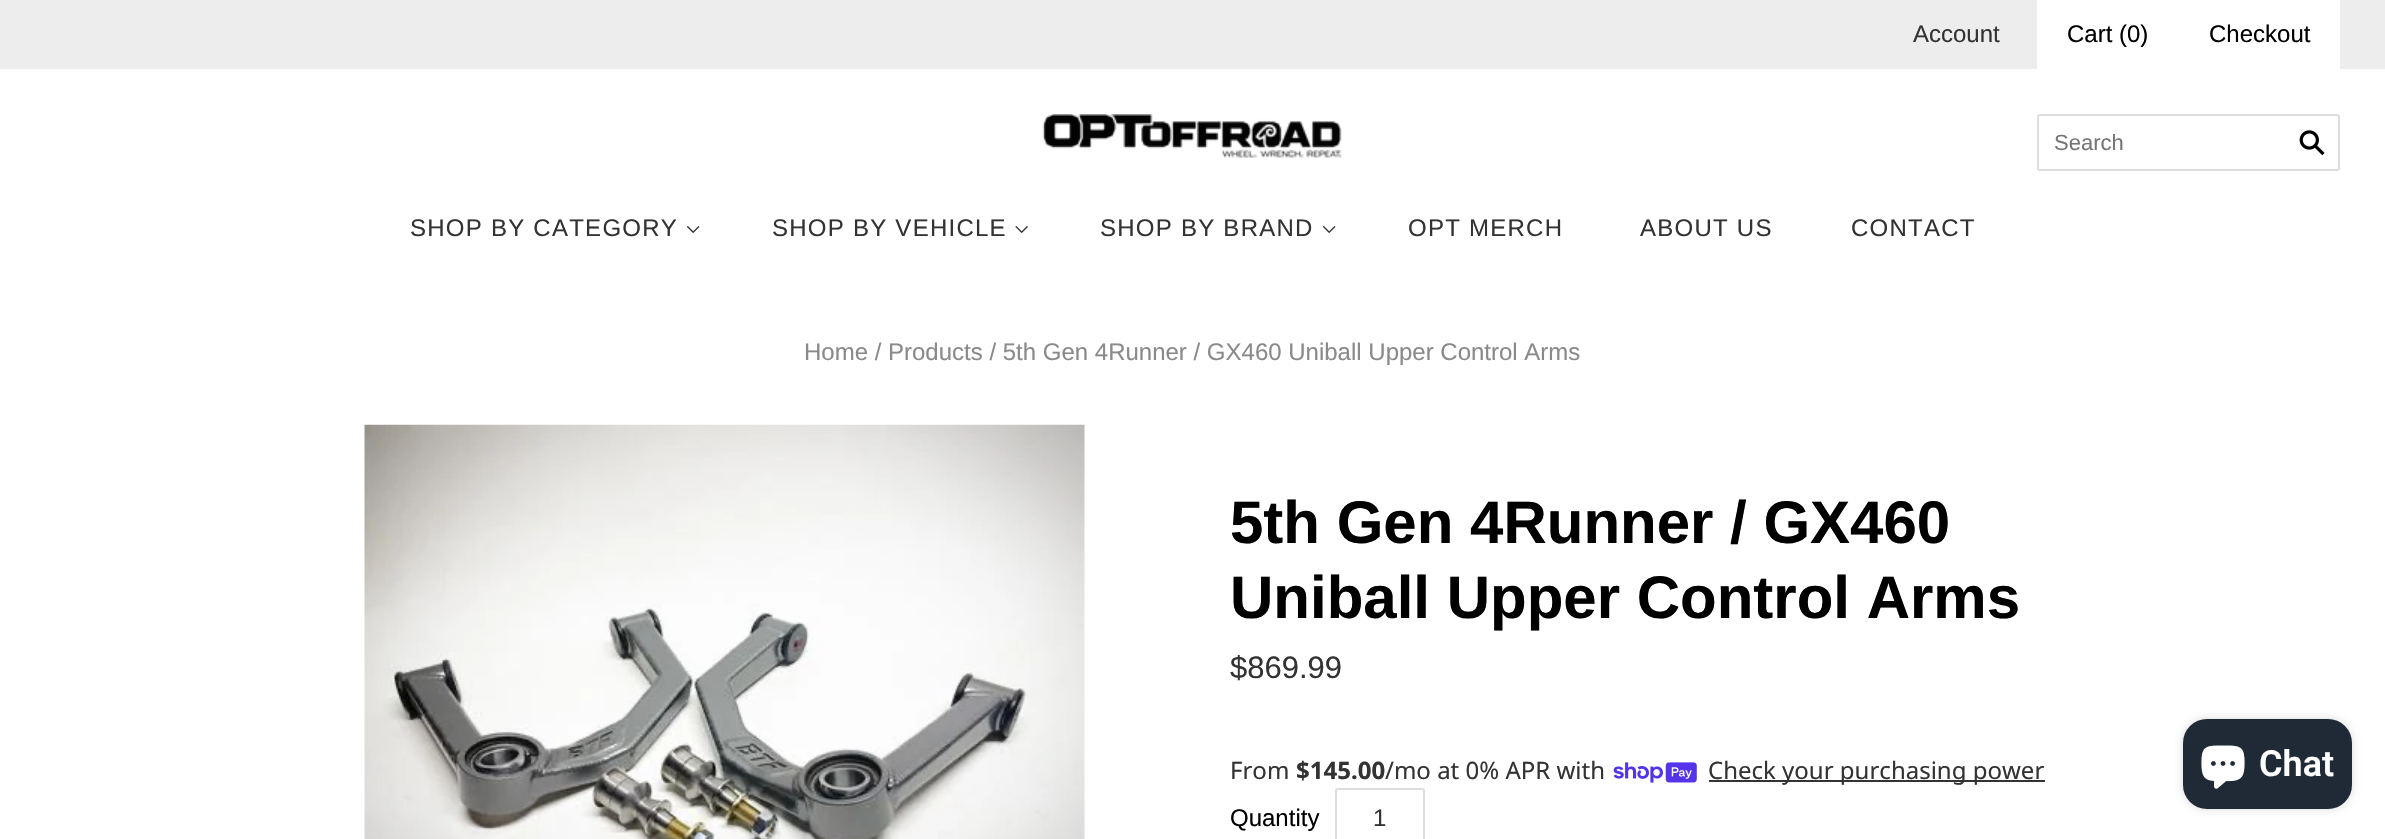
void draw(SkCanvas* c) {
SkPaint p;
p.setAntiAlias(true);
auto F=[&](const char* family, int weight, float size, bool italic = false){SkFontStyle style(weight, SkFontStyle::kNormal_Width,italic ? SkFontStyle::kItalic_Slant : SkFontStyle::kUpright_Slant);SkFont result(fontMgr->matchFamilyStyle(family, style), size);result.setSubpixel(true);return result;};
auto T=[&](const char* s, float x, float y, const SkFont& font){c->drawString(s, x, y, font, p);};
auto L=[&](const char* s, float x, float y, const SkFont& font, const SkPaint& ink, float letter, float word){std::vector<SkGlyphID> glyphs(font.countText(s, strlen(s), SkTextEncoding::kUTF8));std::vector<float> xs(glyphs.size());font.textToGlyphs(s, strlen(s), SkTextEncoding::kUTF8, glyphs);font.getXPos(glyphs, xs, x);float extra = 0;for (size_t i = 0; i < glyphs.size(); i++) {xs[i] += extra;extra += letter + word * (glyphs[i] == font.unicharToGlyph(' '));}c->drawTextBlob(SkTextBlob::MakeFromPosHGlyphs(glyphs, xs, y, font), 0, 0, ink);};
auto R=[&](float x, float y, float w, float h){c->drawRect(SkRect::MakeXYWH(x, y, w, h), p);};
auto Q=[&](float x, float y, float w, float h, float radius){c->drawRoundRect(SkRect::MakeXYWH(x, y, w, h), radius, radius, p);};
auto I=[&](const char* path, float x, float y, float w, float h){auto image = SkImages::DeferredFromEncodedData(SkData::MakeFromFileName(path));c->drawImageRect(image, SkRect::MakeXYWH(x, y, w, h), SkSamplingOptions());};
c->clear(0xffffffff);
p.setColor(0xffededed);
R(0,0,2385,69);
auto f1 = F("Arimo",400,24);
p.setColor(0xff333333);
T("Account",1913,42,f1);
p.setColor(0xffffffff);
R(2037,0,303,69);
p.setColor(0xff000000);
T("Cart (0)",2067,42,f1);
T("Checkout",2209,42,f1);
I("1.png",1042,114,300,44);
p.setStroke(true);
p.setStrokeWidth(2);
p.setColor(0xffdddddd);
c->drawRoundRect(SkRect::MakeXYWH(2038,115,301,55),2,2,p);
auto f2 = F("Arimo",400,22);
p.setStroke(false);
p.setColor(0xff757575);
T("Search",2054,150,f2);
I("2.png",2299,130,26,26);
p.setColor(0xff333333);
L("SHOP BY CATEGORY",410,236,f1,p,1.25,0);
I("3.png",687,226,13,7);
L("SHOP BY VEHICLE",772,236,f1,p,1.25,0);
I("4.png",1015,226,13,7);
L("SHOP BY BRAND",1100,236,f1,p,1.25,0);
I("3.png",1323,226,13,7);
L("OPT MERCH",1408,236,f1,p,1.25,0);
L("ABOUT US",1640,236,f1,p,1.25,0);
L("CONTACT",1851,236,f1,p,1.25,0);
p.setColor(0xff8a8a8a);
T("Home / Products / 5th Gen 4Runner / GX460 Uniball Upper Control Arms",804,360,f1);
I("5.png",364,424,721,415);
auto f3 = F("Arimo",700,60);
p.setColor(0xff000000);
T("5th Gen 4Runner / GX460",1230,543,f3);
T("Uniball Upper Control Arms",1230,618,f3);
auto f4 = F("Arimo",400,31);
p.setColor(0xff333333);
T("$869.99",1230,678,f4);
auto f5 = F("Noto Sans",400,24);
T("From",1230,779,f5);
auto f6 = F("Noto Sans",700,24);
T("$145.00",1296,779,f6);
T("/mo at 0% APR with",1385,779,f5);
I("6.png",1613,762,84,21);
R(1709,780,336,2);
T("Check your purchasing power",1708,779,f5);
p.setColor(0xff000000);
T("Quantity",1230,826,f1);
p.setStroke(true);
p.setColor(0xffdddddd);
c->drawRoundRect(SkRect::MakeXYWH(1336,789,88,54),2,2,p);
p.setStroke(false);
p.setColor(0xff333333);
T("1",1373,826,f1);
p.setColor(0x26000000);
p.setMaskFilter(SkMaskFilter::MakeBlur(kNormal_SkBlurStyle, 4));
c->drawRoundRect(SkRect::MakeXYWH(2183,719,169,90),24,24,p);
p.setMaskFilter(nullptr);
p.setColor(0xff202a36);
Q(2183,719,169,90,24);
I("7.png",2201,745,44,44);
auto f7 = F("Roboto",600,36);
p.setColor(0xffffffff);
T("Chat",2259,776,f7);
}
